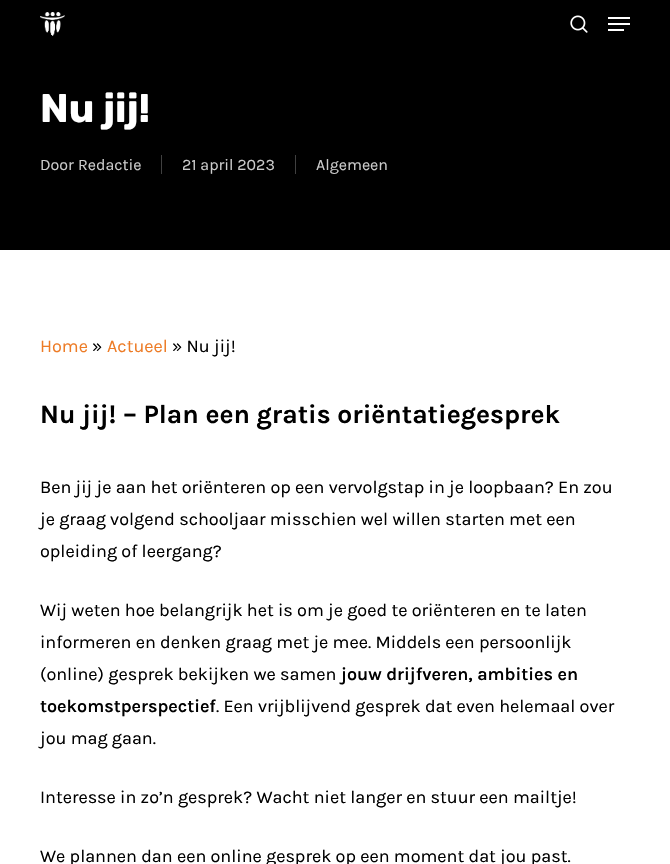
void draw(SkCanvas* c) {
SkPaint p;
p.setAntiAlias(true);
auto F=[&](const char* family, int weight, float size, bool italic = false){SkFontStyle style(weight, SkFontStyle::kNormal_Width,italic ? SkFontStyle::kItalic_Slant : SkFontStyle::kUpright_Slant);SkFont result(fontMgr->matchFamilyStyle(family, style), size);result.setSubpixel(true);return result;};
auto T=[&](const char* s, float x, float y, const SkFont& font){c->drawString(s, x, y, font, p);};
auto R=[&](float x, float y, float w, float h){c->drawRect(SkRect::MakeXYWH(x, y, w, h), p);};
auto I=[&](const char* path, float x, float y, float w, float h){auto image = SkImages::DeferredFromEncodedData(SkData::MakeFromFileName(path));c->drawImageRect(image, SkRect::MakeXYWH(x, y, w, h), SkSamplingOptions());};
c->clear(0xffffffff);
p.setColor(0xff000000);
R(0,0,670,250);
I("1.png",40,12,25,24);
I("2.png",570,15,18,18);
p.setColor(0xffffffff);
R(608,17,22,2);
R(608,29,16,2);
R(608,23,22,2);
auto f1 = F("Rubik",300,40);
T("Nu jij!",40,122,f1);
auto f2 = F("Karla",400,16);
p.setColor(0xffcccccc);
T("Door",40,170,f2);
T("Redactie",78,170,f2);
T("21 april 2023",182,170,f2);
p.setColor(0xff404040);
R(161,155,1,19);
p.setColor(0xffcccccc);
T("Algemeen",316,170,f2);
p.setColor(0xff404040);
R(295,155,1,19);
auto f3 = F("Karla",400,18);
p.setColor(0xffed7b25);
T("Home",40,352,f3);
p.setColor(0xff000000);
T("»",92,352,f3);
p.setColor(0xffed7b25);
T("Actueel",107,352,f3);
p.setColor(0xff000000);
T("» Nu jij!",172,352,f3);
auto f4 = F("Karla",700,26.4);
T("Nu jij! – Plan een gratis oriëntatiegesprek",40,423,f4);
T("Ben jij je aan het oriënteren op een vervolgstap in je loopbaan? En zou",40,493,f3);
T("je graag volgend schooljaar misschien wel willen starten met een",40,525,f3);
T("opleiding of leergang?",40,557,f3);
T("Wij weten hoe belangrijk het is om je goed te oriënteren en te laten",40,616,f3);
T("informeren en denken graag met je mee. Middels een persoonlijk",40,648,f3);
T("(online) gesprek bekijken we samen",40,680,f3);
auto f5 = F("Karla",600,18);
T("jouw drijfveren, ambities en",341,680,f5);
T("toekomstperspectief",40,712,f5);
T(". Een vrijblijvend gesprek dat even helemaal over",216,712,f3);
T("jou mag gaan.",40,744,f3);
T("Interesse in zo’n gesprek? Wacht niet langer en stuur een mailtje!",40,803,f3);
T("We plannen dan een online gesprek op een moment dat jou past.",40,862,f3);
}
